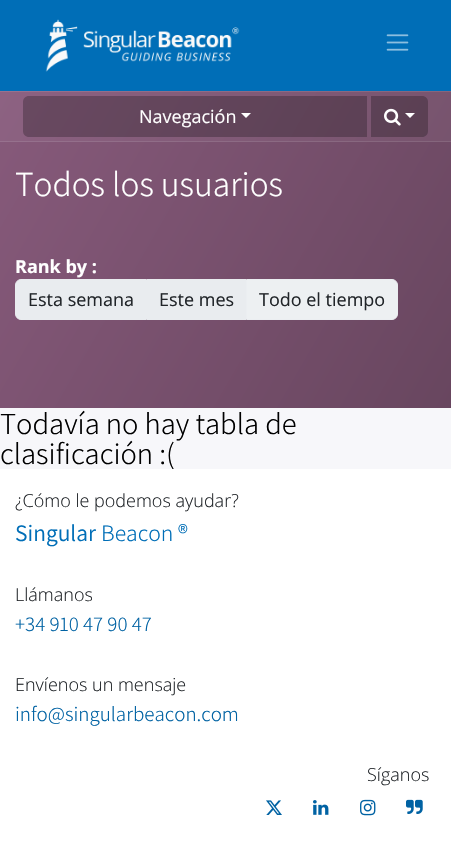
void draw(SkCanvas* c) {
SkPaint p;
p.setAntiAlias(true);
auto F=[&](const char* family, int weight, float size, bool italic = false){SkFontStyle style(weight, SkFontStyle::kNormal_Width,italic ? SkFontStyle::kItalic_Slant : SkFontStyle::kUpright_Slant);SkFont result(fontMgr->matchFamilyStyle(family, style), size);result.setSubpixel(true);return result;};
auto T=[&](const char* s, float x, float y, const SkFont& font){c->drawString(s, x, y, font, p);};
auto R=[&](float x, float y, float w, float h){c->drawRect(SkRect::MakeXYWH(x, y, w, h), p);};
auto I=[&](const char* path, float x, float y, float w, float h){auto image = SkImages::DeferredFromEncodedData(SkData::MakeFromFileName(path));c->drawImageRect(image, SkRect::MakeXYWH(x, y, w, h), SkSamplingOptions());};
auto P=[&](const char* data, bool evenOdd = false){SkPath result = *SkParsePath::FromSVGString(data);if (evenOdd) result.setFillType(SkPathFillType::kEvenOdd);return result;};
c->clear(0xfff7f7fa);
p.setColor(0xff006eb7);
R(0,0,451,91);
I("1.png",45,19,195,53);
I("2.png",386,34,23,17);
{
const SkColor colors[] = {0xff875a7b,0xff68465f};
const float stops[] = {0,1};
const SkPoint ends[] = {{-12,112}, {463,387}};
p.setShader(SkGradientShader::MakeLinear(ends, colors, stops, 2, SkTileMode::kClamp));
p.setAlpha(255);
}
R(0,142,451,266);
{
const SkColor colors[] = {0xff8d6282,0xff704f67};
const float stops[] = {0,1};
const SkPoint ends[] = {{-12,112}, {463,387}};
p.setShader(SkGradientShader::MakeLinear(ends, colors, stops, 2, SkTileMode::kClamp));
p.setAlpha(255);
}
R(0,92,451,49);
{
const SkColor colors[] = {0xff98728f,0xff7e6176};
const float stops[] = {0,1};
const SkPoint ends[] = {{-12,112}, {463,387}};
p.setShader(SkGradientShader::MakeLinear(ends, colors, stops, 2, SkTileMode::kClamp));
p.setAlpha(255);
}
R(0,141,451,1);
R(0,91,451,1);
p.setShader(nullptr);
p.setColor(0x40000000);
c->drawPath(P("M29 96h338v41h-338c-3.5 0-6-2.5-6-6v-29c0-3.5 2.5-6 6-6z"),p);
auto f1 = F("Open Sans",400,18);
p.setColor(0xffffffff);
T("Navegación",139,123,f1);
c->drawPath(P("M241 113h10l-5 5z"),p);
p.setColor(0x40000000);
c->drawPath(P("M371 96h51c3.5 0 6 2.5 6 6v29c0 3.5-2.5 6-6 6h-51z"),p);
I("3.png",384,108,17,18);
p.setColor(0xffffffff);
c->drawPath(P("M405 113h10l-5 5z"),p);
auto f2 = F("Assistant",300,35.25);
T("Todos los usuarios",15,196,f2);
auto f3 = F("Open Sans",700,18);
T("Rank by :",15,273,f3);
p.setColor(0xffe9ecef);
c->drawPath(P("M21 279.5h125.5v40h-125.5c-3 0-5.5-2.5-5.5-5.5v-29c0-3 2.5-5.5 5.5-5.5z"),p);
p.setStroke(true);
p.setStrokeWidth(1);
c->drawPath(P("M21 279.5h125.5v40h-125.5c-3 0-5.5-2.5-5.5-5.5v-29c0-3 2.5-5.5 5.5-5.5z"),p);
p.setStroke(false);
p.setColor(0xff212529);
T("Esta semana",28,306,f1);
p.setColor(0xffe9ecef);
R(147,279,99,41);
p.setColor(0xff212529);
T("Este mes",159,306,f1);
p.setColor(0xffedf0f2);
c->drawPath(P("M246.5 279.5h145.5c3 0 5.5 2.5 5.5 5.5v29c0 3-2.5 5.5-5.5 5.5h-145.5z"),p);
p.setStroke(true);
p.setColor(0xffebeef1);
c->drawPath(P("M246.5 279.5h145.5c3 0 5.5 2.5 5.5 5.5v29c0 3-2.5 5.5-5.5 5.5h-145.5z"),p);
p.setStroke(false);
p.setColor(0xff212529);
T("Todo el tiempo",259,306,f1);
auto f4 = F("Assistant",300,30.5);
p.setColor(0xff000000);
T("Todavía no hay tabla de",0,434,f4);
T("clasificación :(",0,464,f4);
p.setColor(0xffffffff);
R(0,469,451,395);
auto f5 = F("Open Sans",300,18);
p.setColor(0xff212529);
T("¿Cómo le podemos ayudar?",15,507,f5);
auto f6 = F("Assistant",400,23.5);
p.setColor(0xff006eb7);
T("Singular",15,541,f6);
auto f7 = F("Assistant",300,23.5);
T("Beacon",101,541,f7);
auto f8 = F("Assistant",300,24);
T("®",178,541,f8);
p.setColor(0xff212529);
T("Llámanos",15,601,f5);
auto f9 = F("Assistant",300,20.9);
p.setColor(0xff0062a3);
T("+34 910 47 90 47",15,631,f9);
p.setColor(0xff212529);
T("Envíenos un mensaje",15,691,f5);
p.setColor(0xff0062a3);
T("info@singularbeacon.com",15,721,f9);
p.setColor(0xff212529);
T("Síganos",367,781,f5);
I("4.png",266,800,16,15);
I("5.png",313,800,16,15);
I("6.png",360,799,16,17);
I("7.png",406,799,17,15);
}
